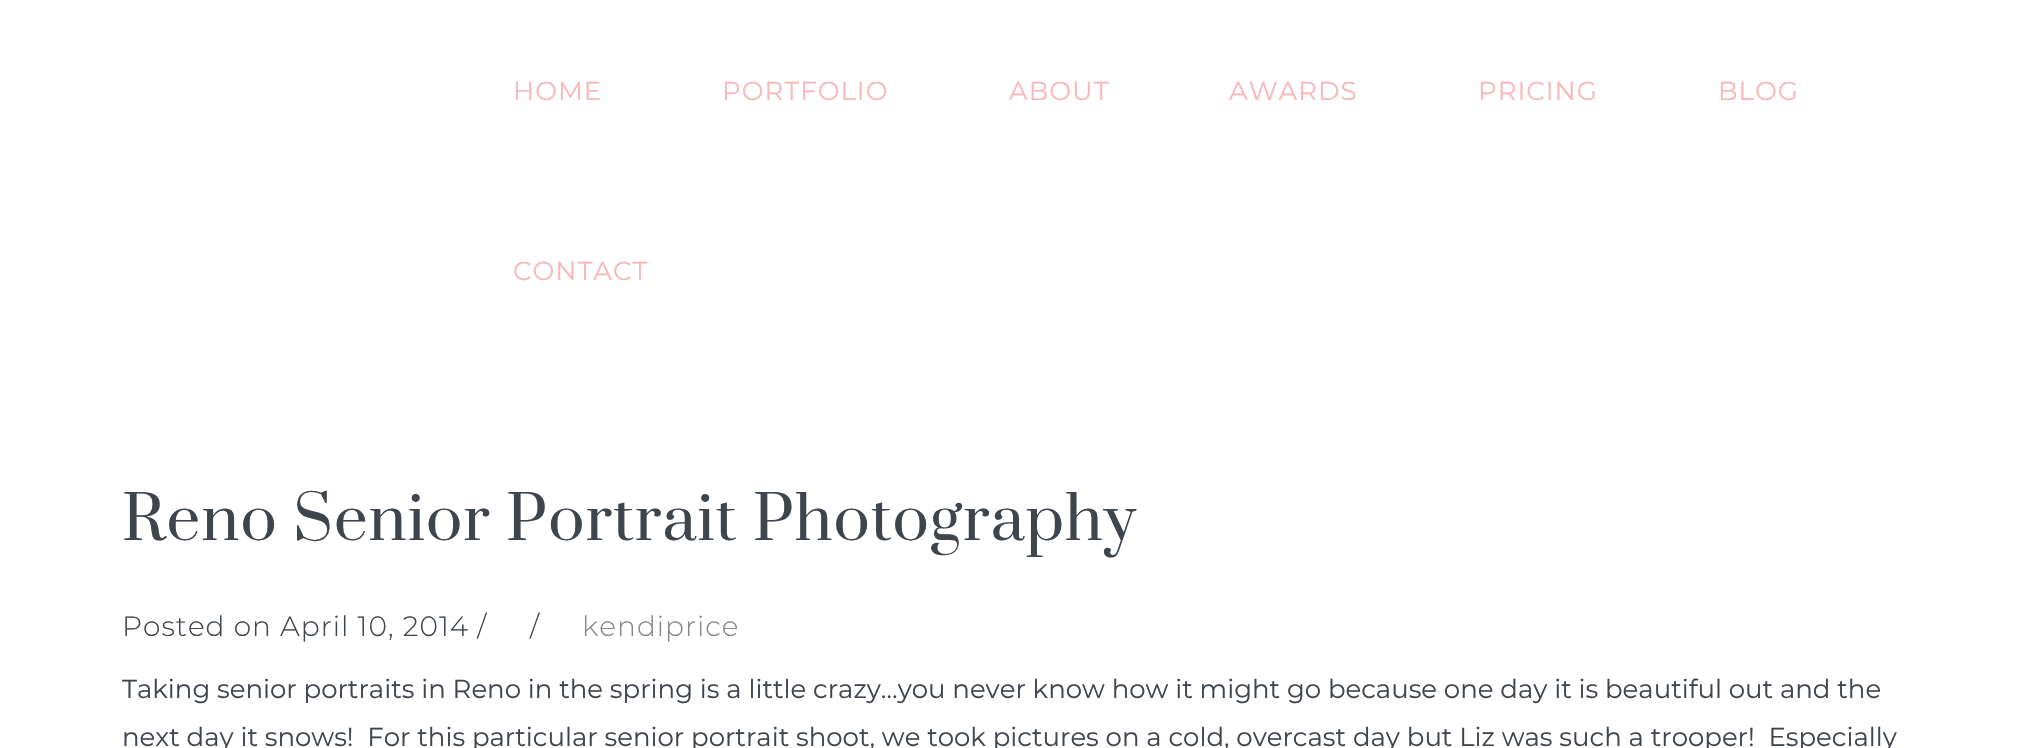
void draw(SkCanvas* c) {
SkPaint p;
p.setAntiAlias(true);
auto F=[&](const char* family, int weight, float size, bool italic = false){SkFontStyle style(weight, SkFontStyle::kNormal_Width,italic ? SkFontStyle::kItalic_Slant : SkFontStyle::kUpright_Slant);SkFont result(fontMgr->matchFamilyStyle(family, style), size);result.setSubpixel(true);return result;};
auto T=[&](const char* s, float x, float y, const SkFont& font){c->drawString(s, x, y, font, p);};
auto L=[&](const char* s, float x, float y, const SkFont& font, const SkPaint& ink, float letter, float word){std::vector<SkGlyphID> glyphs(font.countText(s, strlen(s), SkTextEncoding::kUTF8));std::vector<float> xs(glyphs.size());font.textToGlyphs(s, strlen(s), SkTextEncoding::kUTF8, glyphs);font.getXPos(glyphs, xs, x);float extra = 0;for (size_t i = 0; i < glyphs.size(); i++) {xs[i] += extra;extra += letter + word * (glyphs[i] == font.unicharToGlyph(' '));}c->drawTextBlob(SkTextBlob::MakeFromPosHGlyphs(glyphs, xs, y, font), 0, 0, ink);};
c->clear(0xffffffff);
auto f1 = F("Montserrat",400,26);
p.setColor(0xfff8b7b8);
L("HOME",513,100,f1,p,1,0);
L("PORTFOLIO",722,100,f1,p,1,0);
L("ABOUT",1009,100,f1,p,1,0);
L("AWARDS",1229,100,f1,p,1,0);
L("PRICING",1478,100,f1,p,1,0);
L("BLOG",1718,100,f1,p,1,0);
L("CONTACT",513,280,f1,p,1,0);
auto f2 = F("Prata",400,60);
p.setColor(0xff3e454c);
L("Reno Senior Portrait Photography",122,540,f2,p,1,0);
auto f3 = F("Montserrat",300,28);
L("Posted on April 10, 2014 /",122,636,f3,p,1,0);
L("/",530,636,f3,p,1,0);
p.setColor(0xff888888);
L("kendiprice",582,636,f3,p,1,0);
p.setColor(0xff3e454c);
T("Taking senior portraits in Reno in the spring is a little crazy…you never know how it might go because one day it is beautiful out and the",122,698,f1);
T("next day it snows!  For this particular senior portrait shoot, we took pictures on a cold, overcast day but Liz was such a trooper!  Especially",122,746,f1);
}
